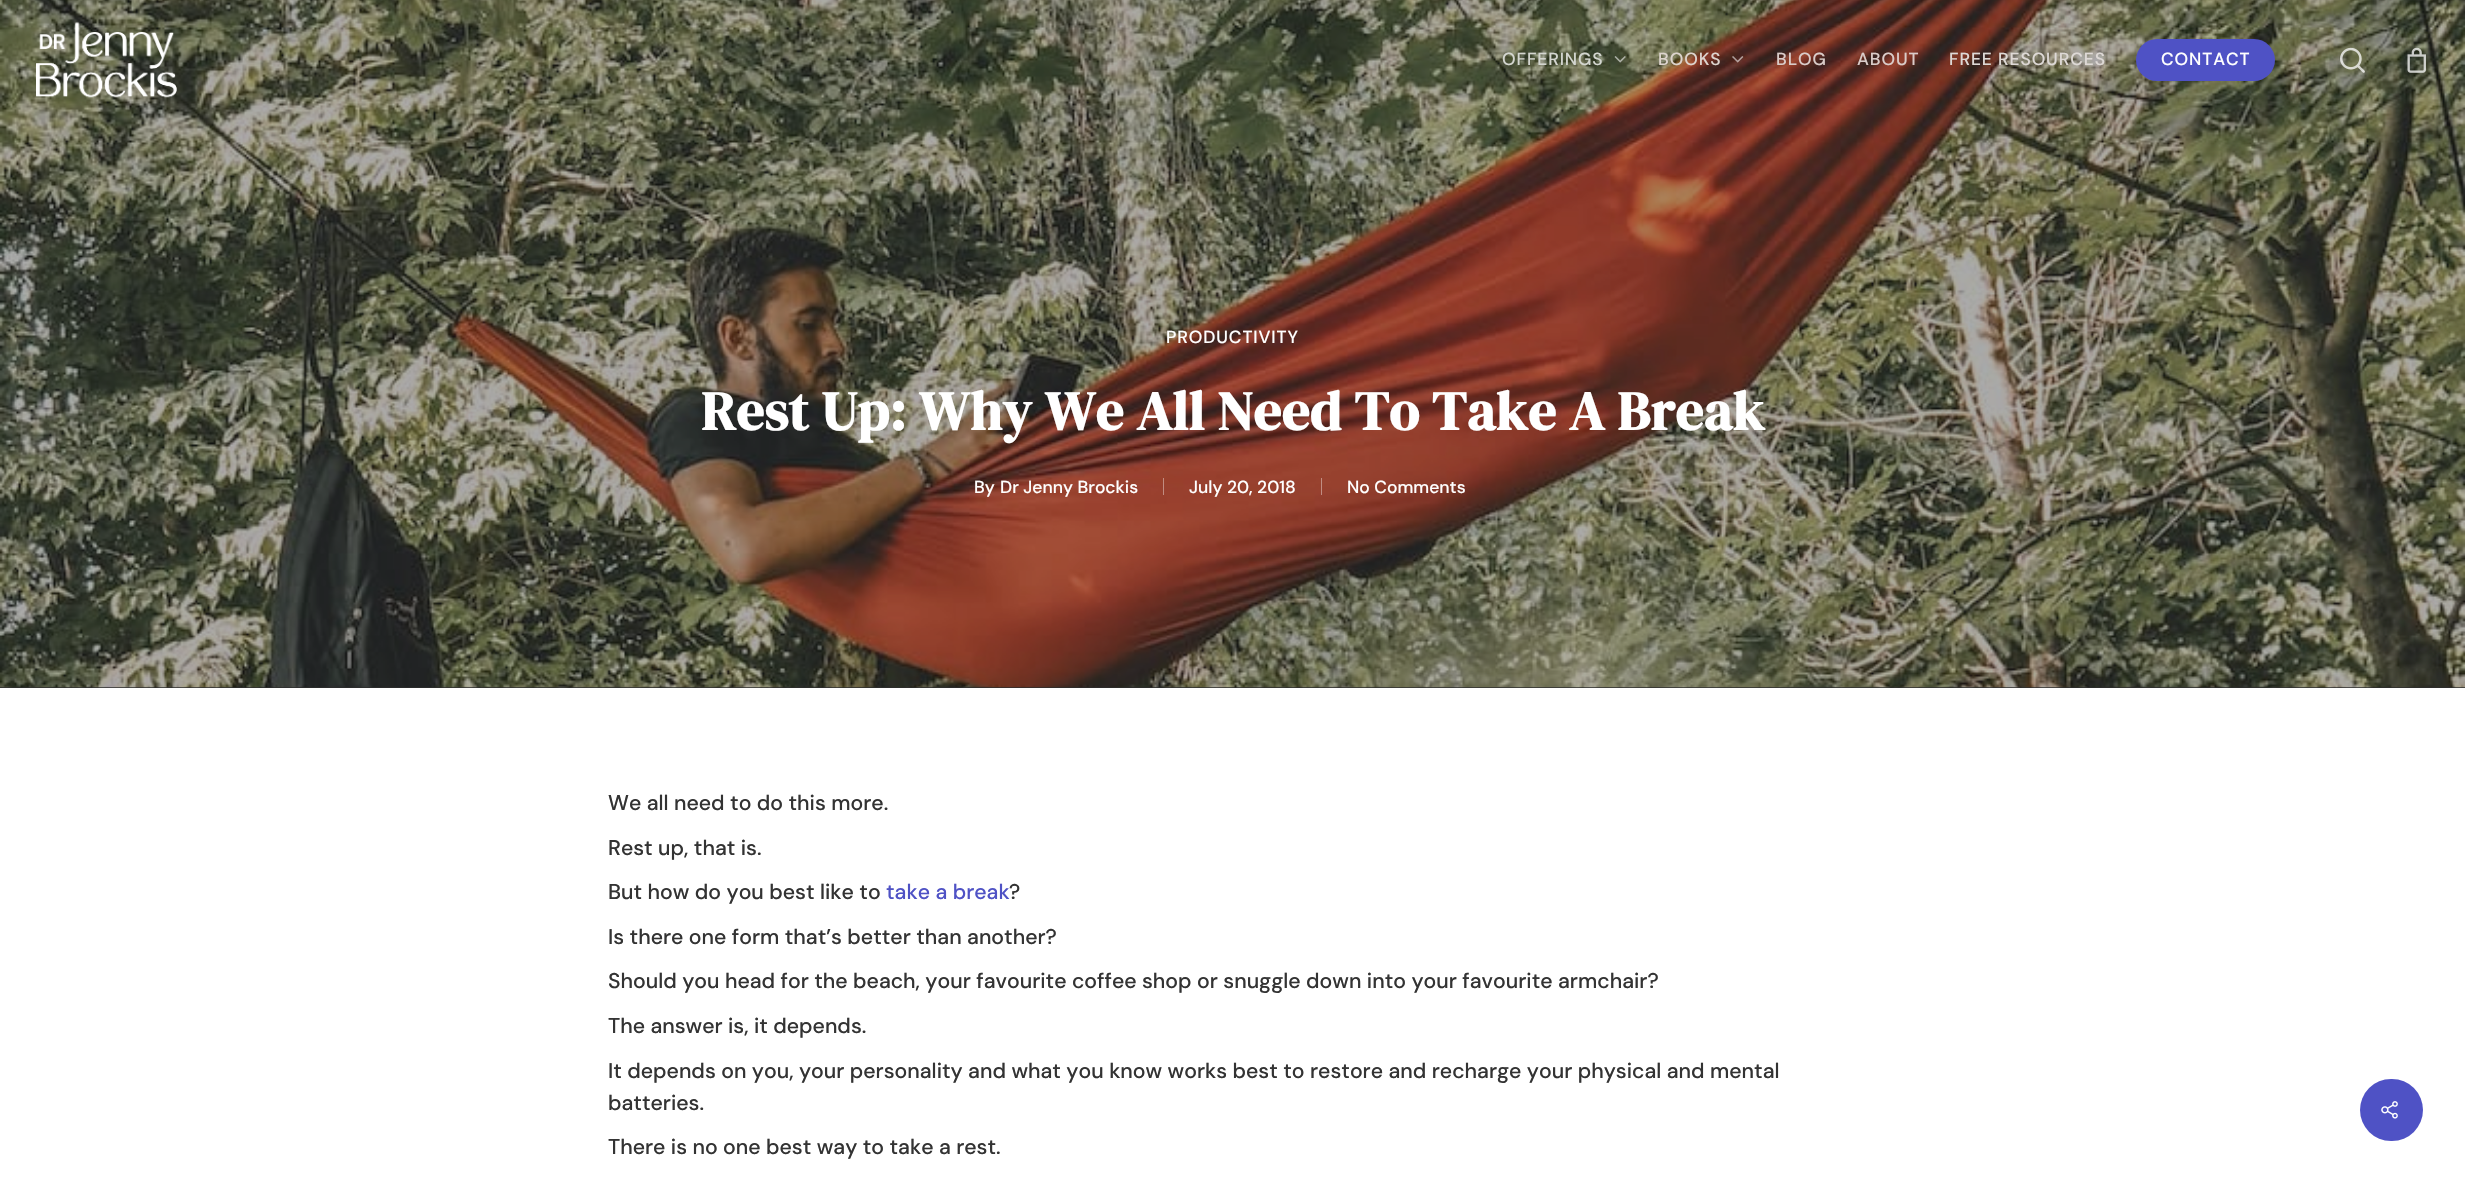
void draw(SkCanvas* c) {
SkPaint p;
p.setAntiAlias(true);
auto F=[&](const char* family, int weight, float size, bool italic = false){SkFontStyle style(weight, SkFontStyle::kNormal_Width,italic ? SkFontStyle::kItalic_Slant : SkFontStyle::kUpright_Slant);SkFont result(fontMgr->matchFamilyStyle(family, style), size);result.setSubpixel(true);return result;};
auto T=[&](const char* s, float x, float y, const SkFont& font){c->drawString(s, x, y, font, p);};
auto L=[&](const char* s, float x, float y, const SkFont& font, const SkPaint& ink, float letter, float word){std::vector<SkGlyphID> glyphs(font.countText(s, strlen(s), SkTextEncoding::kUTF8));std::vector<float> xs(glyphs.size());font.textToGlyphs(s, strlen(s), SkTextEncoding::kUTF8, glyphs);font.getXPos(glyphs, xs, x);float extra = 0;for (size_t i = 0; i < glyphs.size(); i++) {xs[i] += extra;extra += letter + word * (glyphs[i] == font.unicharToGlyph(' '));}c->drawTextBlob(SkTextBlob::MakeFromPosHGlyphs(glyphs, xs, y, font), 0, 0, ink);};
auto R=[&](float x, float y, float w, float h){c->drawRect(SkRect::MakeXYWH(x, y, w, h), p);};
auto Q=[&](float x, float y, float w, float h, float radius){c->drawRoundRect(SkRect::MakeXYWH(x, y, w, h), radius, radius, p);};
auto I=[&](const char* path, float x, float y, float w, float h){auto image = SkImages::DeferredFromEncodedData(SkData::MakeFromFileName(path));c->drawImageRect(image, SkRect::MakeXYWH(x, y, w, h), SkSamplingOptions());};
c->clear(0xffffffff);
p.setColor(0xff2d2d2d);
R(0,687,2465,1);
I("6.png",0,0,2465,688);
I("1.png",36,22,141,76);
auto f1 = F("DM Sans",500,17.5);
p.setColor(0xffd4d6d0);
L("OFFERINGS",1502,65,f1,p,.9,0);
I("2.png",1614,56,12,7);
p.setColor(0xffddd4ce);
L("BOOKS",1658,65,f1,p,.9,0);
I("3.png",1732,56,12,7);
p.setColor(0xffdaccc9);
L("BLOG",1776,65,f1,p,.9,0);
L("ABOUT",1857,65,f1,p,.9,0);
p.setColor(0xffded9d6);
L("FREE RESOURCES",1949,65,f1,p,.9,0);
p.setColor(0xff4f52c5);
Q(2136,39,139,42,21);
p.setColor(0xffffffff);
L("CONTACT",2161,65,f1,p,.9,0);
I("4.png",2340,47,25,26);
I("5.png",2407,47,19,26);
L("PRODUCTIVITY",1166,343,f1,p,.9,0);
auto f2 = F("DM Serif Display",700,55);
L("Rest Up: Why We All Need To Take A Break",701,430,f2,p,.4,0);
T("By",974,493,f1);
T("Dr Jenny Brockis",1000,493,f1);
p.setColor(0xffc18c81);
R(1163,478,1,17);
p.setColor(0xffffffff);
T("July 20, 2018",1189,493,f1);
p.setColor(0x66ffffff);
R(1321,478,1,17);
p.setColor(0xffffffff);
T("No Comments",1347,493,f1);
auto f3 = F("DM Sans",500,21.25);
p.setColor(0xff333333);
T("We all need to do this more.",608,810,f3);
T("Rest up, that is.",608,855,f3);
T("But how do you best like to",608,899,f3);
p.setColor(0xff4f52c5);
T("take a break",886,899,f3);
p.setColor(0xff333333);
T("?",1009,899,f3);
T("Is there one form that’s better than another?",608,944,f3);
T("Should you head for the beach, your favourite coffee shop or snuggle down into your favourite armchair?",608,988,f3);
T("The answer is, it depends.",608,1033,f3);
T("It depends on you, your personality and what you know works best to restore and recharge your physical and mental",608,1078,f3);
T("batteries.",608,1110,f3);
T("There is no one best way to take a rest.",608,1154,f3);
p.setColor(0xff4f52c5);
Q(2360,1079,63,62,31);
I("7.png",2381,1101,17,18);
}
